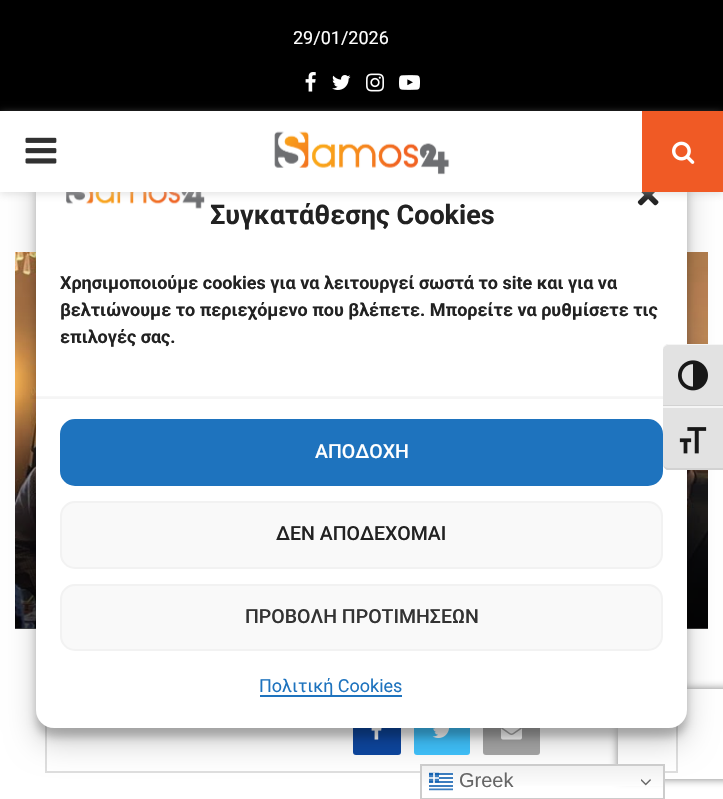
void draw(SkCanvas* c) {
SkPaint p;
p.setAntiAlias(true);
auto F=[&](const char* family, int weight, float size, bool italic = false){SkFontStyle style(weight, SkFontStyle::kNormal_Width,italic ? SkFontStyle::kItalic_Slant : SkFontStyle::kUpright_Slant);SkFont result(fontMgr->matchFamilyStyle(family, style), size);result.setSubpixel(true);return result;};
auto T=[&](const char* s, float x, float y, const SkFont& font){c->drawString(s, x, y, font, p);};
auto R=[&](float x, float y, float w, float h){c->drawRect(SkRect::MakeXYWH(x, y, w, h), p);};
auto Q=[&](float x, float y, float w, float h, float radius){c->drawRoundRect(SkRect::MakeXYWH(x, y, w, h), radius, radius, p);};
auto I=[&](const char* path, float x, float y, float w, float h){auto image = SkImages::DeferredFromEncodedData(SkData::MakeFromFileName(path));c->drawImageRect(image, SkRect::MakeXYWH(x, y, w, h), SkSamplingOptions());};
auto P=[&](const char* data, bool evenOdd = false){SkPath result = *SkParsePath::FromSVGString(data);if (evenOdd) result.setFillType(SkPathFillType::kEvenOdd);return result;};
c->clear(0xffffffff);
p.setColor(0xff000000);
R(0,0,723,111);
auto f1 = F("Roboto",400,18);
p.setColor(0xffffffff);
T("29/01/2026",293,44,f1);
I("1.png",305,72,11,20);
I("2.png",332,75,19,15);
I("3.png",366,73,18,19);
I("4.png",399,75,21,15);
p.setColor(0xfff5f5f5);
R(15,628,693,1);
I("8.png",15,252,693,377);
{
const SkColor colors[] = {0x00000000,0xb3000000};
const float stops[] = {.5,.9};
const SkPoint ends[] = {{361,252}, {362,629}};
p.setShader(SkGradientShader::MakeLinear(ends, colors, stops, 2, SkTileMode::kClamp));
p.setAlpha(255);
}
R(15,446,693,183);
p.setStroke(true);
p.setStrokeWidth(2);
p.setShader(nullptr);
p.setColor(0xffdedede);
c->drawRect(SkRect::MakeXYWH(46,690,631,82),p);
p.setStroke(false);
p.setColor(0xff0d47a1);
Q(353,707,48,48,3);
p.setColor(0xff40c4ff);
Q(414,707,56,48,3);
p.setColor(0xffa7a7a7);
Q(483,707,57,48,3);
I("9.png",371,728,11,12);
I("10.png",432,728,17,10);
I("11.png",501,728,21,12);
p.setColor(0x3b000000);
p.setMaskFilter(SkMaskFilter::MakeBlur(kNormal_SkBlurStyle, 4.5));
c->drawRoundRect(SkRect::MakeXYWH(36,143,651,594),18,18,p);
p.setMaskFilter(nullptr);
p.setColor(0x30000000);
p.setMaskFilter(SkMaskFilter::MakeBlur(kNormal_SkBlurStyle, 15));
c->drawRoundRect(SkRect::MakeXYWH(36,149,651,594),18,18,p);
p.setMaskFilter(nullptr);
c->save();
c->clipPath(P("M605 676h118v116h-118zm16 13h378c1.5 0 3 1.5 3 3v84c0 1.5-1.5 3-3 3h-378c-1.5 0-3-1.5-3-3v-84c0-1.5 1.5-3 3-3z",true),true);
p.setColor(0xff808080);
p.setMaskFilter(SkMaskFilter::MakeBlur(kNormal_SkBlurStyle, 4));
c->drawRoundRect(SkRect::MakeXYWH(618,689,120,90),3,3,p);
p.setMaskFilter(nullptr);
c->restore();
p.setColor(0xffffffff);
Q(36,134,651,594,18);
I("12.png",66,192,139,17);
I("13.png",637,192,22,14);
p.setColor(0x75bebebe);
p.setMaskFilter(SkMaskFilter::MakeBlur(kNormal_SkBlurStyle, 4));
c->drawRect(SkRect::MakeXYWH(0,113,723,81),p);
p.setMaskFilter(nullptr);
p.setColor(0xffffffff);
R(0,111,642,81);
I("5.png",25,137,32,27);
I("6.png",274,131,176,44);
p.setColor(0xfff05a25);
R(642,111,81,81);
I("7.png",672,141,23,23);
auto f2 = F("Roboto",700,27);
p.setColor(0xff222222);
T("Συγκατάθεσης Cookies",210,224,f2);
auto f3 = F("Roboto",700,18);
T("Χρησιμοποιούμε cookies για να λειτουργεί σωστά το site και για να",60,289,f3);
T("βελτιώνουμε το περιεχόμενο που βλέπετε. Μπορείτε να ρυθμίσετε τις",60,316,f3);
T("επιλογές σας.",60,343,f3);
c->save();
c->clipRect(SkRect::MakeXYWH(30,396,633,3));
p.setColor(0x0d000000);
p.setMaskFilter(SkMaskFilter::MakeBlur(kNormal_SkBlurStyle, 2));
c->drawRect(SkRect::MakeXYWH(30,396,663,5),p);
p.setMaskFilter(nullptr);
c->restore();
p.setColor(0xff1e73be);
c->drawRoundRect(SkRect::MakeXYWH(61,420,601,65),14,14,p);
p.setStroke(true);
c->drawRoundRect(SkRect::MakeXYWH(61,420,601,65),14,14,p);
auto f4 = F("Roboto",500,19.5);
p.setStroke(false);
p.setColor(0xffffffff);
T("ΑΠΟΔΟΧΗ",315,458,f4);
p.setColor(0xfff9f9f9);
c->drawRoundRect(SkRect::MakeXYWH(61,502,601,66),14,14,p);
p.setStroke(true);
p.setColor(0xfff2f2f2);
c->drawRoundRect(SkRect::MakeXYWH(61,502,601,66),14,14,p);
p.setStroke(false);
p.setColor(0xff222222);
T("ΔΕΝ ΑΠΟΔΕΧΟΜΑΙ",276,540,f4);
p.setColor(0xfff9f9f9);
c->drawRoundRect(SkRect::MakeXYWH(61,585,601,65),14,14,p);
p.setStroke(true);
p.setColor(0xfff2f2f2);
c->drawRoundRect(SkRect::MakeXYWH(61,585,601,65),14,14,p);
p.setStroke(false);
p.setColor(0xff333333);
T("ΠΡΟΒΟΛΗ ΠΡΟΤΙΜΗΣΕΩΝ",245,623,f4);
p.setColor(0xff1e73be);
R(260,695,142,2);
T("Πολιτική Cookies",259,692,f1);
p.setColor(0xffe2e2e2);
c->drawPath(P("M669 344h54v63h-60v-57c0-3.5 2.5-6 6-6z"),p);
p.setColor(0xfff5f5f5);
c->drawPath(P("M669 344h54v1h-54c-3 0-6 2-6 5c0-4 3-6 6-6z"),p);
p.setColor(0xffd2d2d2);
R(663,405,60,1);
I("14.png",678,360,30,31);
p.setColor(0xffe2e2e2);
c->drawPath(P("M663 407h60v63h-54c-3.5 0-6-2.5-6-6z"),p);
p.setColor(0xfff5f5f5);
R(663,406,60,2);
p.setColor(0xffd2d2d2);
c->drawPath(P("M723 470h-56c-2-1-4-4-4-6c0 2 3 4 6 4h54z"),p);
I("15.png",679,427,28,27);
{
const SkColor colors[] = {0xffefefef,0xffffffff};
const float stops[] = {0,.7};
const SkPoint ends[] = {{542,764}, {542,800}};
p.setShader(SkGradientShader::MakeLinear(ends, colors, stops, 2, SkTileMode::kClamp));
p.setAlpha(255);
}
R(422,766,241,20);
p.setStroke(true);
p.setShader(nullptr);
p.setColor(0xffcccccc);
c->drawRect(SkRect::MakeXYWH(421,765,243,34),p);
I("16.png",429,772,24,19);
auto f5 = F("Liberation Sans",400,20);
p.setStroke(false);
p.setColor(0xff666666);
T("Greek",459,787,f5);
I("17.png",641,779,10,7);
}
